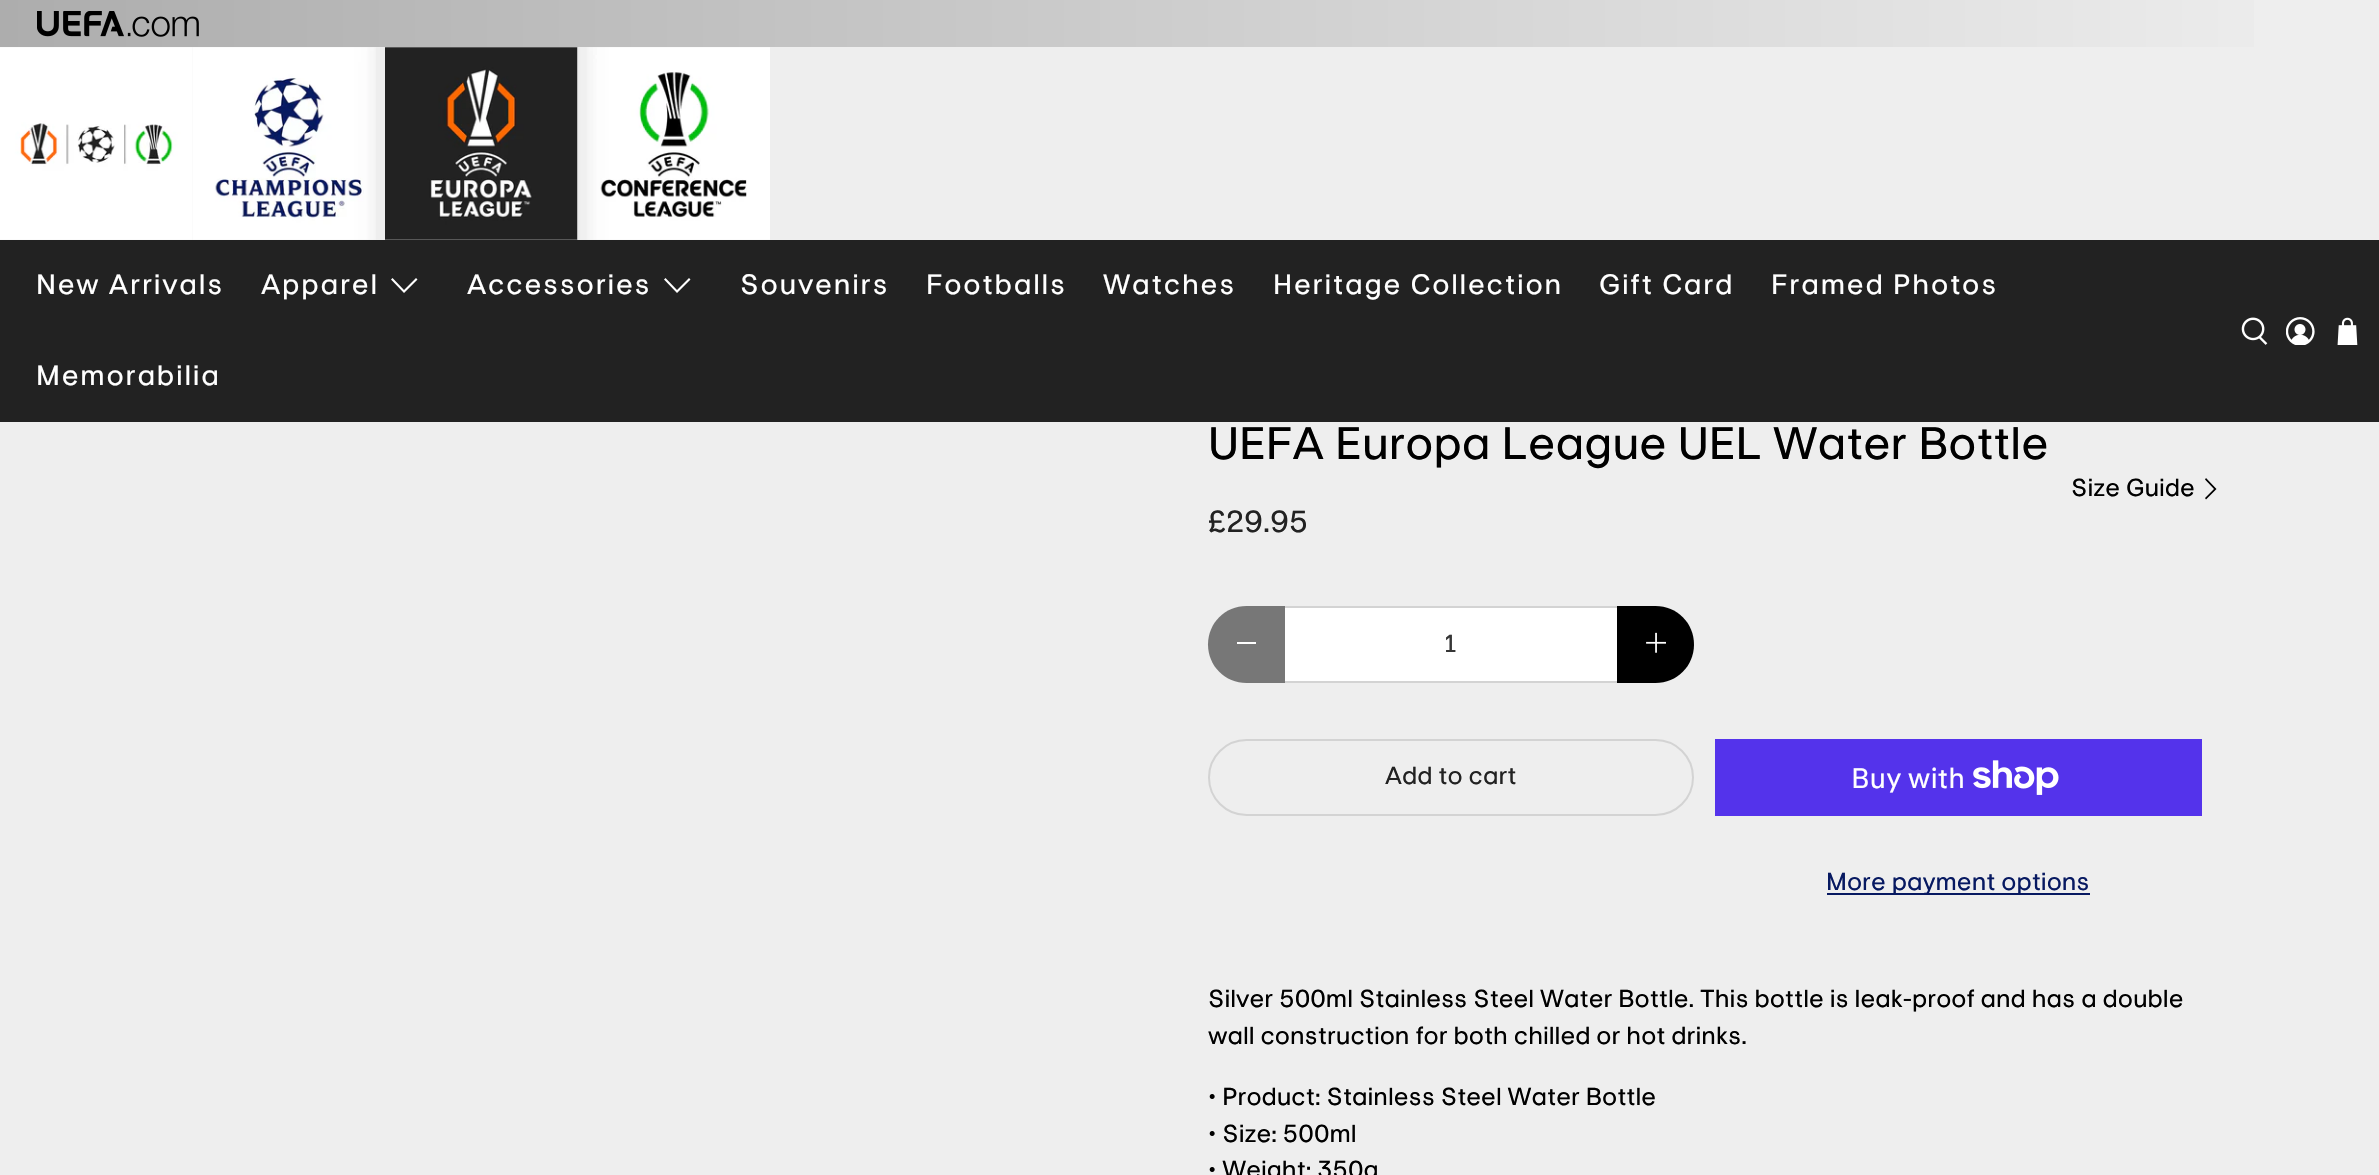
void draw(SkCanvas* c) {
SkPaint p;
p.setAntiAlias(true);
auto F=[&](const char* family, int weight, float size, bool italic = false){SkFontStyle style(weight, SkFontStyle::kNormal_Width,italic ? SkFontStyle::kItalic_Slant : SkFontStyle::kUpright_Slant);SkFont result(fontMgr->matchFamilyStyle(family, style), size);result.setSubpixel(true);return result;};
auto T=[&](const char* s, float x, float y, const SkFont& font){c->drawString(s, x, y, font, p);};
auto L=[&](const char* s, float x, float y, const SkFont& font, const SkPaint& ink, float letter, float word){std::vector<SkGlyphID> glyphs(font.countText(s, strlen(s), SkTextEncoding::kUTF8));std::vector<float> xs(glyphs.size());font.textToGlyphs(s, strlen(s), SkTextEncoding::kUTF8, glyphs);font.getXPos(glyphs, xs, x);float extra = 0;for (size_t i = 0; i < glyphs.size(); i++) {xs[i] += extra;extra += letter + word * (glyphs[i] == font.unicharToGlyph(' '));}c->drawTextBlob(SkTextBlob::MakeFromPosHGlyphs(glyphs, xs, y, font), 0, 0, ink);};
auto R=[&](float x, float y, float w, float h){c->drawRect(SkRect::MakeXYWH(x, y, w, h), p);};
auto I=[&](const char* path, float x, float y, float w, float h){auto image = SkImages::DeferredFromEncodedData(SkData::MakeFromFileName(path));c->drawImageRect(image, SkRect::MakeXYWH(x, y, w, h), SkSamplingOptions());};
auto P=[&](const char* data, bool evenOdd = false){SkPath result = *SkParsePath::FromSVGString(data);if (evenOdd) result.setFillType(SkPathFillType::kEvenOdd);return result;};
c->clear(0xffeeeeee);
{
const SkColor colors[] = {0xffadadad,0xffefefef};
const float stops[] = {0,1};
const SkPoint ends[] = {{0,24}, {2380,24}};
p.setShader(SkGradientShader::MakeLinear(ends, colors, stops, 2, SkTileMode::kClamp));
p.setAlpha(255);
}
R(0,0,2254,47);
I("1.png",37,11,162,26);
I("2.png",0,47,193,193);
I("3.png",192,47,184,193);
p.setShader(nullptr);
p.setColor(0xffffffff);
R(385,47,193,193);
I("4.png",385,47,193,193);
I("5.png",577,47,193,193);
p.setColor(0xff222222);
R(0,240,2379,182);
auto f1 = F("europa",400,28);
p.setColor(0xffffffff);
L("New Arrivals",36,294,f1,p,1.75,0);
L("Apparel",261,294,f1,p,1.75,0);
c->drawPath(P("M404 293l-13-13.5l1.5-1.5l11.5 12l12-12l1.5 1.5z"),p);
L("Accessories",467,294,f1,p,1.75,0);
c->drawPath(P("M677 293l-13-13.5l1.5-1.5l11.5 12l12-12l1.5 1.5z"),p);
L("Souvenirs",740,294,f1,p,1.75,0);
L("Footballs",926,294,f1,p,1.75,0);
L("Watches",1103,294,f1,p,1.75,0);
L("Heritage Collection",1273,294,f1,p,1.75,0);
L("Gift Card",1599,294,f1,p,1.75,0);
L("Framed Photos",1771,294,f1,p,1.75,0);
L("Memorabilia",36,385,f1,p,1.75,0);
I("6.png",2241,317,27,28);
I("7.png",2286,317,29,28);
I("8.png",2337,317,21,28);
auto f2 = F("europa",400,45.5);
p.setColor(0xff000000);
T("UEFA Europa League UEL Water Bottle",1208,459,f2);
auto f3 = F("europa",400,24.5);
T("Size Guide",2071,496,f3);
c->drawPath(P("M2206 499.5l-1-1.5l9-9l-9-9.5l1-1.5l10.5 11z"),p);
auto f4 = F("europa",400,30.5);
p.setColor(0xff222222);
T("£29.95",1208,532,f4);
p.setColor(0xff777777);
c->drawPath(P("M1246.5 606h38.5v77h-38.5c-21.5 0-38.5-17-38.5-38.5c0-21.5 17-38.5 38.5-38.5z"),p);
p.setColor(0xffffffff);
R(1237,642,19,2);
R(1285,608,332,73);
p.setColor(0xffd3d3d3);
R(1285,606,332,2);
R(1285,681,332,2);
p.setColor(0xff363636);
T("1",1444,652,f3);
p.setColor(0xff000000);
c->drawPath(P("M1617 606h38.5c21.5 0 38.5 17 38.5 38.5c0 21.5-17 38.5-38.5 38.5h-38.5z"),p);
I("9.png",1646,632,20,21);
p.setStroke(true);
p.setStrokeWidth(2);
p.setColor(0xffd3d3d3);
c->drawRoundRect(SkRect::MakeXYWH(1209,740,484,75),37.5,37.5,p);
p.setStroke(false);
p.setColor(0xff222222);
T("Add to cart",1385,784,f3);
p.setColor(0xff5433eb);
R(1715,739,487,77);
auto f5 = F("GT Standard",400,28);
p.setColor(0xffffffff);
T("Buy with",1851,788,f5);
I("10.png",1973,760,86,35);
p.setColor(0xff071961);
R(1827,893,263,2);
T("More payment options",1826,890,f3);
p.setColor(0xff000000);
T("Silver 500ml Stainless Steel Water Bottle. This bottle is leak-proof and has a double",1208,1007,f3);
T("wall construction for both chilled or hot drinks.",1208,1044,f3);
T("• Product: Stainless Steel Water Bottle",1208,1105,f3);
T("• Size: 500ml",1208,1142,f3);
T("• Weight: 350g",1208,1178,f3);
}
